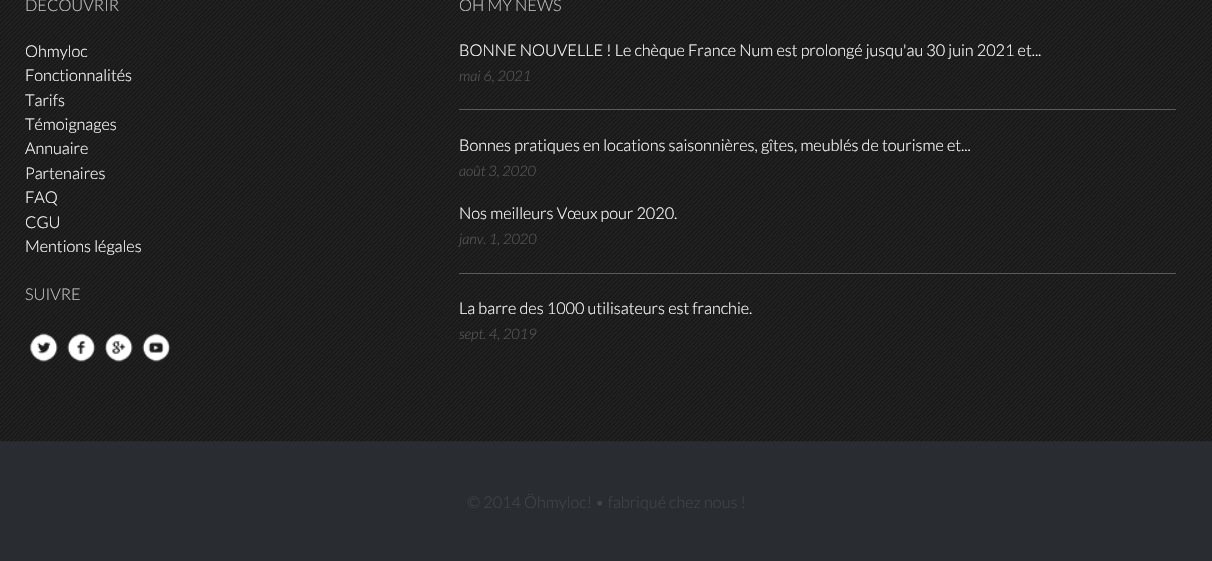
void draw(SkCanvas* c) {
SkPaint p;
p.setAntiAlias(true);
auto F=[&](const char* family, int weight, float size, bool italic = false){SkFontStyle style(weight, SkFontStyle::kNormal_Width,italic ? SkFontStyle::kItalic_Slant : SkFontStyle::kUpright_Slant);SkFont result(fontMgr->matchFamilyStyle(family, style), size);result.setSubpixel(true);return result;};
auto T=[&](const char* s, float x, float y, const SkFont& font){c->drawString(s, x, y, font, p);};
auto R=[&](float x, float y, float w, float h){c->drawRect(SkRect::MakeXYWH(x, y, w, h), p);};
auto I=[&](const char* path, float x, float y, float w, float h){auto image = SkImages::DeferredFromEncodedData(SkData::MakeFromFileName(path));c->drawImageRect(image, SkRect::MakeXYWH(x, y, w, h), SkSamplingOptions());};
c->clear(0xff292d31);
I("1.png",0,0,1212,442);
auto f1 = F("Lato",300,16.25);
p.setColor(0xffc1c1c1);
T("DÉCOUVRIR",25,11,f1);
p.setColor(0xffffffff);
T("Ohmyloc",25,57,f1);
T("Fonctionnalités",25,81,f1);
T("Tarifs",25,106,f1);
T("Témoignages",25,130,f1);
T("Annuaire",25,154,f1);
T("Partenaires",25,179,f1);
T("FAQ",25,203,f1);
T("CGU",25,228,f1);
T("Mentions légales",25,252,f1);
p.setColor(0xffc1c1c1);
T("SUIVRE",25,300,f1);
I("2.png",29,333,29,29);
I("3.png",67,333,29,29);
I("4.png",105,333,28,29);
I("5.png",142,333,29,29);
T("ÖH MY NEWS",459,11,f1);
p.setColor(0xff5b5b5b);
R(459,109,717,1);
p.setColor(0xffffffff);
T("BONNE NOUVELLE ! Le chèque France Num est prolongé jusqu'au 30 juin 2021 et...",459,56,f1);
auto f2 = F("Lato",300,14.5,true);
p.setColor(0xff5b5b5b);
T("mai 6, 2021",459,81,f2);
p.setColor(0xffffffff);
T("Bonnes pratiques en locations saisonnières, gîtes, meublés de tourisme et...",459,151,f1);
p.setColor(0xff5b5b5b);
T("août 3, 2020",459,176,f2);
R(459,273,717,1);
p.setColor(0xffffffff);
T("Nos meilleurs Vœux pour 2020.",459,219,f1);
p.setColor(0xff5b5b5b);
T("janv. 1, 2020",459,244,f2);
p.setColor(0xffffffff);
T("La barre des 1000 utilisateurs est franchie.",459,314,f1);
p.setColor(0xff5b5b5b);
T("sept. 4, 2019",459,339,f2);
p.setColor(0xff444444);
T("© 2014 Öhmyloc! • fabriqué chez nous !",467,508,f1);
}
